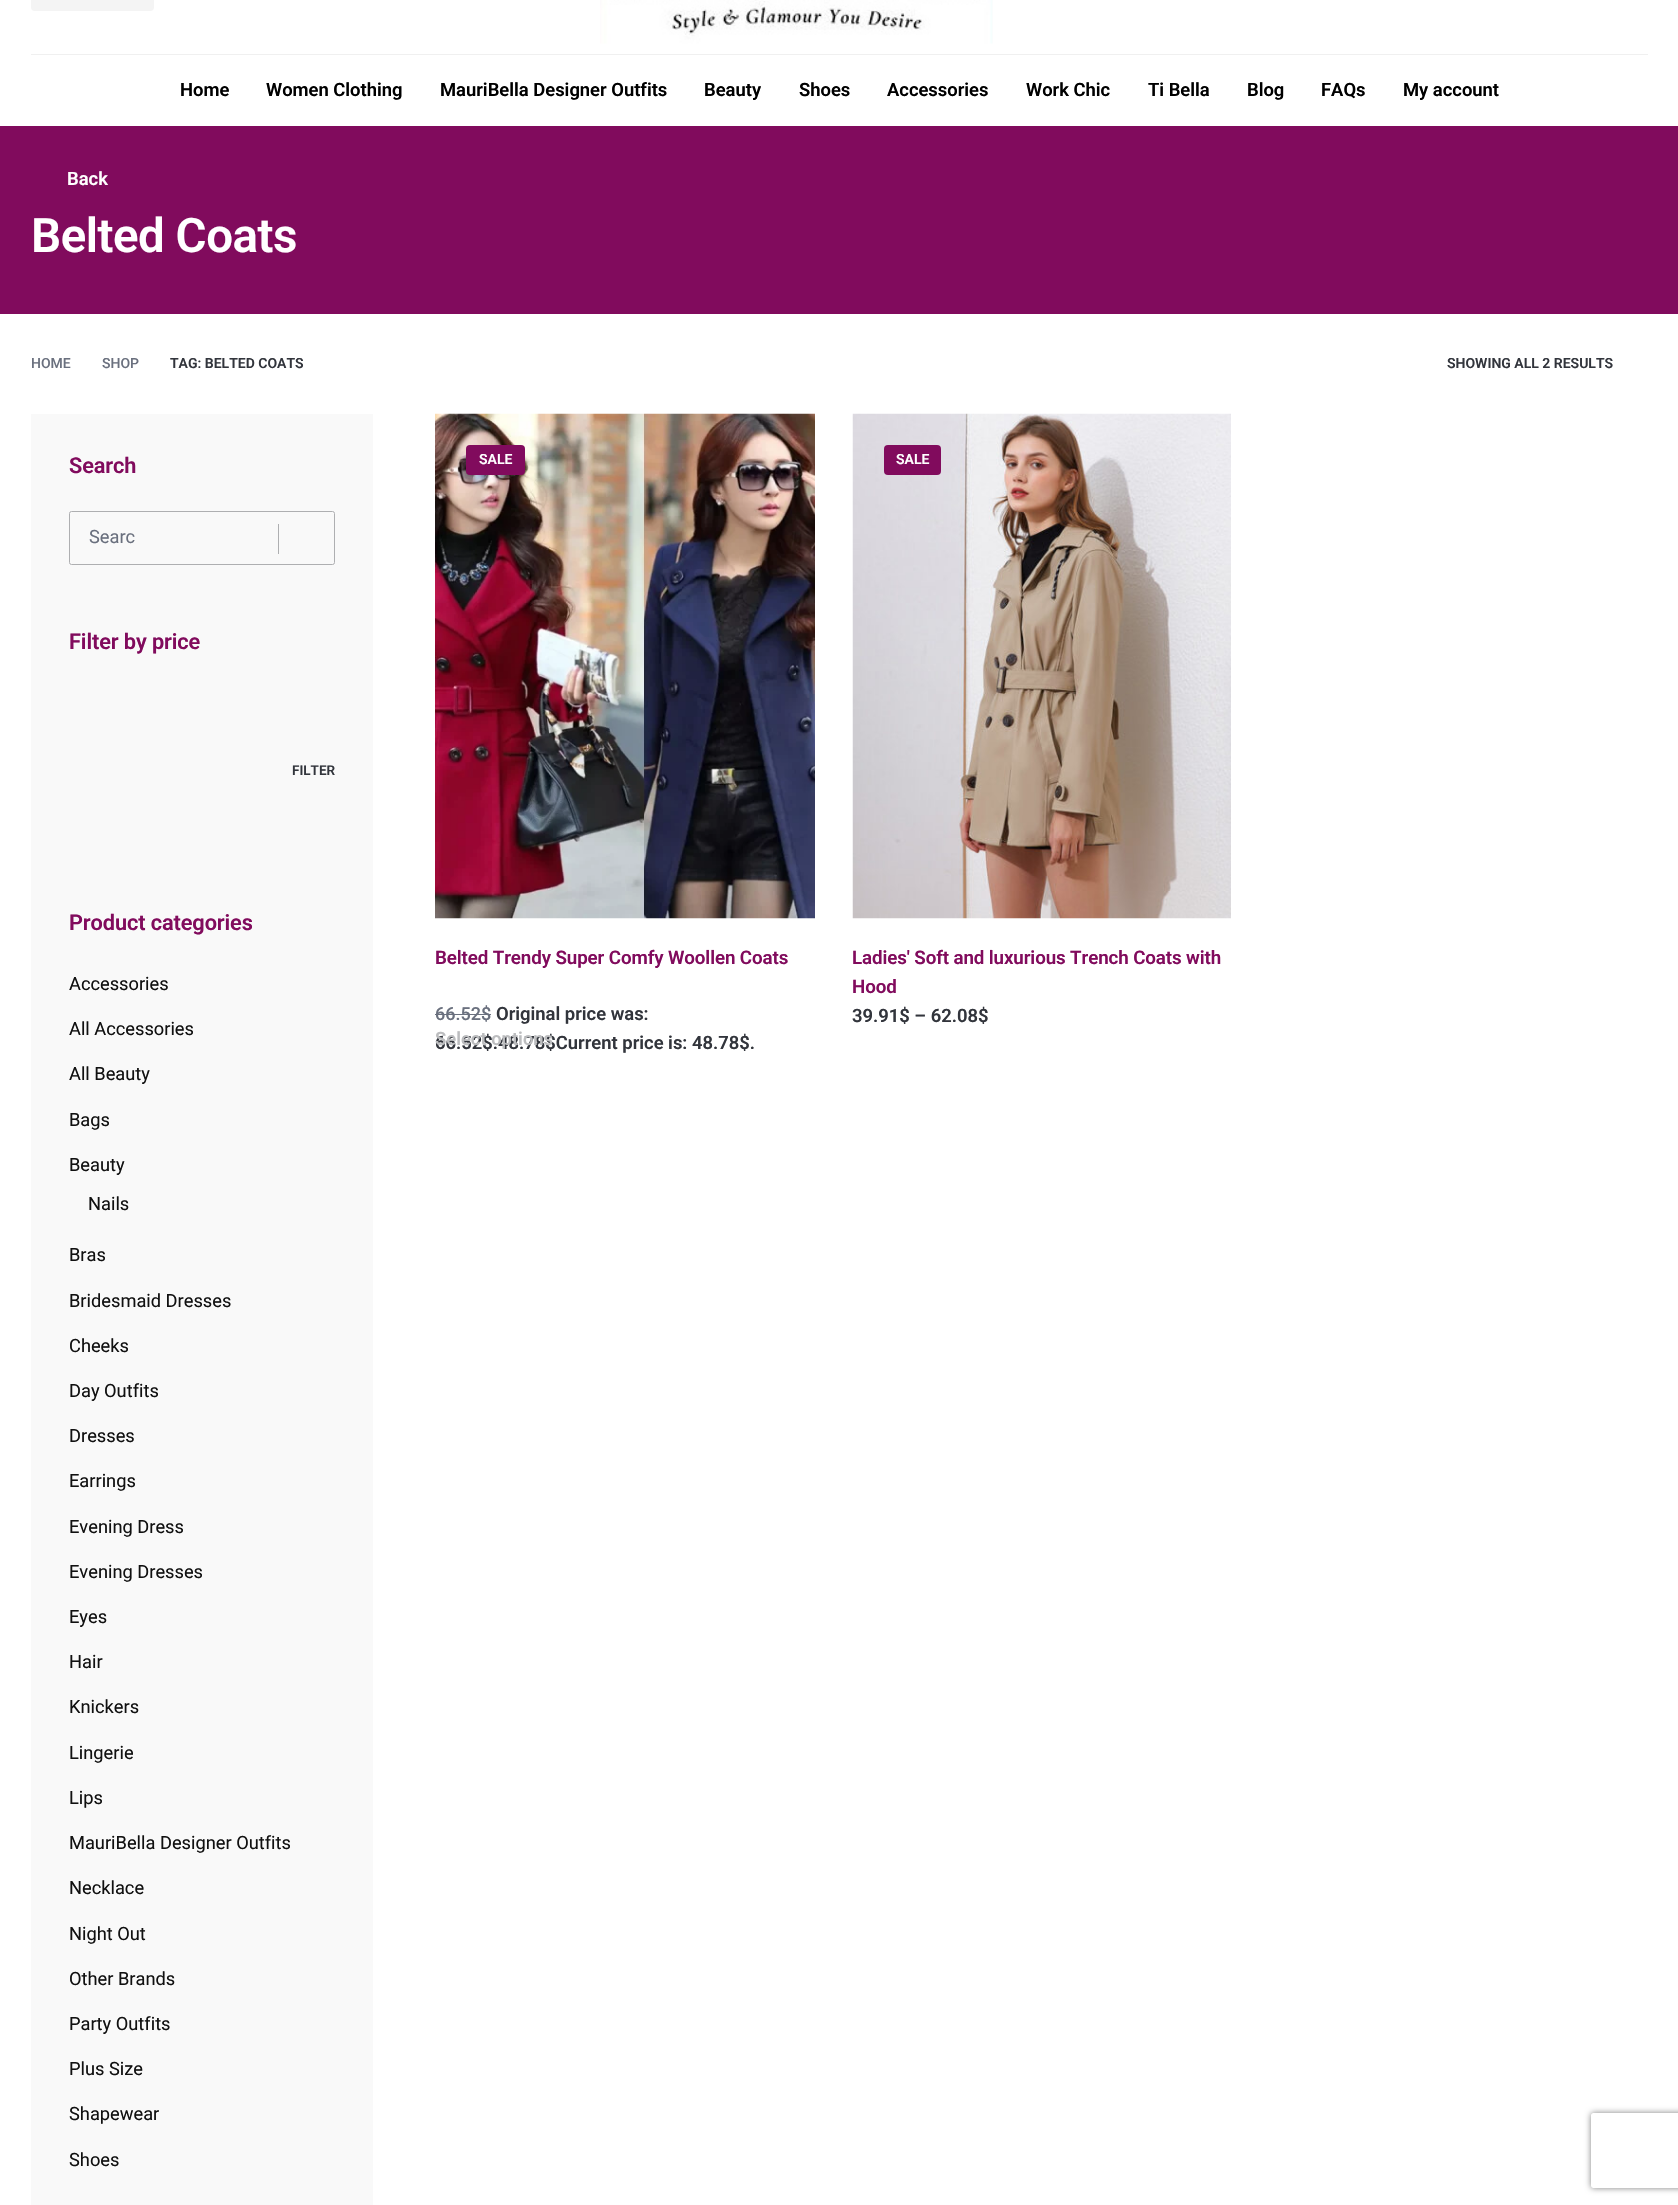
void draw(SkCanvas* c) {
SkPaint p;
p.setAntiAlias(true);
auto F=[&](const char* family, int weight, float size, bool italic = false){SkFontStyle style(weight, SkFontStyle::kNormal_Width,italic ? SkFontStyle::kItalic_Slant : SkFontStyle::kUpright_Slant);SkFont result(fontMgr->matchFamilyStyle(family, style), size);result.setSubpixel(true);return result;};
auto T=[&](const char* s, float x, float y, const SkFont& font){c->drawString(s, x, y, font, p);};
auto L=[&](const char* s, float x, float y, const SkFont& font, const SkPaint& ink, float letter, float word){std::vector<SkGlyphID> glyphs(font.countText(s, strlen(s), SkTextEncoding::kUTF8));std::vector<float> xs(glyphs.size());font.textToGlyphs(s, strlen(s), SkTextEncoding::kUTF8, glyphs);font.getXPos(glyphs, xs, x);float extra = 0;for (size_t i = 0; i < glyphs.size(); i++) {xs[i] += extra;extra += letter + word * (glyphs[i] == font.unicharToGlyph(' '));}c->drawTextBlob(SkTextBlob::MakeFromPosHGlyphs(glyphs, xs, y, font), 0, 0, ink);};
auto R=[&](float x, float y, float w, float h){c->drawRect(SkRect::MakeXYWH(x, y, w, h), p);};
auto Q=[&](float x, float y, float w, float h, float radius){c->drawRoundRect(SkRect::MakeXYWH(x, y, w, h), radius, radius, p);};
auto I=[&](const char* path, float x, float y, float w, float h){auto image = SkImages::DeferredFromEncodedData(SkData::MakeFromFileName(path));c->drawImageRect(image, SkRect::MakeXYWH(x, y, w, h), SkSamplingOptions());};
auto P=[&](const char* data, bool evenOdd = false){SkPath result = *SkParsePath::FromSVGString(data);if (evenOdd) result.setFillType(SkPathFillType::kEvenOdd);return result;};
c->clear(0xffffffff);
p.setColor(0xfff4f4f4);
Q(31,-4,123,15,4);
I("1.png",600,0,393,44);
p.setColor(0xfff0f0f0);
R(31,54,1617,1);
auto f1 = F("Roboto",600,18.4);
p.setColor(0xff000000);
T("Home",180,96,f1);
T("Women Clothing",266,96,f1);
T("MauriBella Designer Outfits",440,96,f1);
T("Beauty",704,96,f1);
T("Shoes",799,96,f1);
T("Accessories",887,96,f1);
T("Work Chic",1026,96,f1);
T("Ti Bella",1148,96,f1);
T("Blog",1247,96,f1);
T("FAQs",1321,96,f1);
T("My account",1403,96,f1);
p.setColor(0xff810b5d);
R(0,126,1678,188);
p.setColor(0xffffffff);
T("Back",67,185,f1);
auto f2 = F("Roboto",600,47.5);
L("Belted Coats",31,252,f2,p,-.5,0);
auto f3 = F("Roboto",500,14);
p.setColor(0xff6a707e);
T("HOME",31,368,f3);
T("SHOP",102,368,f3);
auto f4 = F("Roboto",600,14);
p.setColor(0xff32353c);
T("TAG: BELTED COATS",170,368,f4);
T("SHOWING ALL 2 RESULTS",1447,368,f4);
p.setColor(0xfff9f9f9);
R(31,414,342,1791);
auto f5 = F("Roboto",600,21.75);
p.setColor(0xff810b5d);
L("Search",69,473,f5,p,-.1,0);
p.setStroke(true);
p.setStrokeWidth(1);
p.setColor(0xffaeafb1);
c->drawRoundRect(SkRect::MakeXYWH(69.5,511.5,265,53),2,2,p);
auto f6 = F("Roboto",400,18.25);
p.setStroke(false);
p.setColor(0xff6a707e);
T("Searc",89,543,f6);
p.setColor(0xffaeafb1);
R(278,524,1,30);
p.setColor(0xff810b5d);
L("Filter by price",69,649,f5,p,-.1,0);
auto f7 = F("Roboto",600,13.5);
p.setColor(0xff32353c);
T("FILTER",292,775,f7);
p.setColor(0xff810b5d);
L("Product categories",69,930,f5,p,-.1,0);
p.setColor(0xff111111);
T("Accessories",69,990,f6);
T("All Accessories",69,1035,f6);
T("All Beauty",69,1080,f6);
T("Bags",69,1126,f6);
T("Beauty",69,1171,f6);
T("Nails",88,1210,f6);
T("Bras",69,1261,f6);
T("Bridesmaid Dresses",69,1307,f6);
T("Cheeks",69,1352,f6);
T("Day Outfits",69,1397,f6);
T("Dresses",69,1442,f6);
T("Earrings",69,1487,f6);
T("Evening Dress",69,1533,f6);
T("Evening Dresses",69,1578,f6);
T("Eyes",69,1623,f6);
T("Hair",69,1668,f6);
T("Knickers",69,1713,f6);
T("Lingerie",69,1759,f6);
T("Lips",69,1804,f6);
T("MauriBella Designer Outfits",69,1849,f6);
T("Necklace",69,1894,f6);
T("Night Out",69,1940,f6);
T("Other Brands",69,1985,f6);
T("Party Outfits",69,2030,f6);
T("Plus Size",69,2075,f6);
T("Shapewear",69,2120,f6);
T("Shoes",69,2166,f6);
I("2.png",435,413,380,506);
p.setColor(0xff810b5d);
Q(466,445,59,30,4);
p.setColor(0xffffffff);
T("SALE",479,464,f4);
auto f8 = F("Roboto",600,18.75);
p.setColor(0xff810b5d);
L("Belted Trendy Super Comfy Woollen Coats",435,964,f8,p,-.1,0);
auto f9 = F("Roboto",500,18);
p.setColor(0xff6a707e);
T("66.52$",435,1020,f9);
R(435,1014,56,1);
p.setColor(0xff32353c);
T("Original price was:",496,1020,f1);
T("66.52$.48.78$Current price is: 48.78$.",435,1049,f1);
p.setColor(0xffbcbdbf);
T("Select options",435,1045,f1);
I("3.png",852,413,379,506);
p.setColor(0xff810b5d);
Q(884,445,57,30,4);
p.setColor(0xffffffff);
T("SALE",896,464,f4);
p.setColor(0xff810b5d);
L("Ladies' Soft and luxurious Trench Coats with",852,964,f8,p,-.1,0);
L("Hood",852,993,f8,p,-.1,0);
p.setColor(0xff32353c);
T("39.91$ – 62.08$",852,1022,f1);
c->save();
c->clipPath(P("M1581 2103h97v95h-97zm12.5 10h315c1.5 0 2.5 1 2.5 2.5v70c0 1.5-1 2.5-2.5 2.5h-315c-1.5 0-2.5-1-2.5-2.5v-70c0-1.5 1-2.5 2.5-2.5z",true),true);
p.setColor(0xff808080);
p.setMaskFilter(SkMaskFilter::MakeBlur(kNormal_SkBlurStyle, 3));
c->drawRoundRect(SkRect::MakeXYWH(1591,2113,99,75),2.5,2.5,p);
p.setMaskFilter(nullptr);
c->restore();
}
